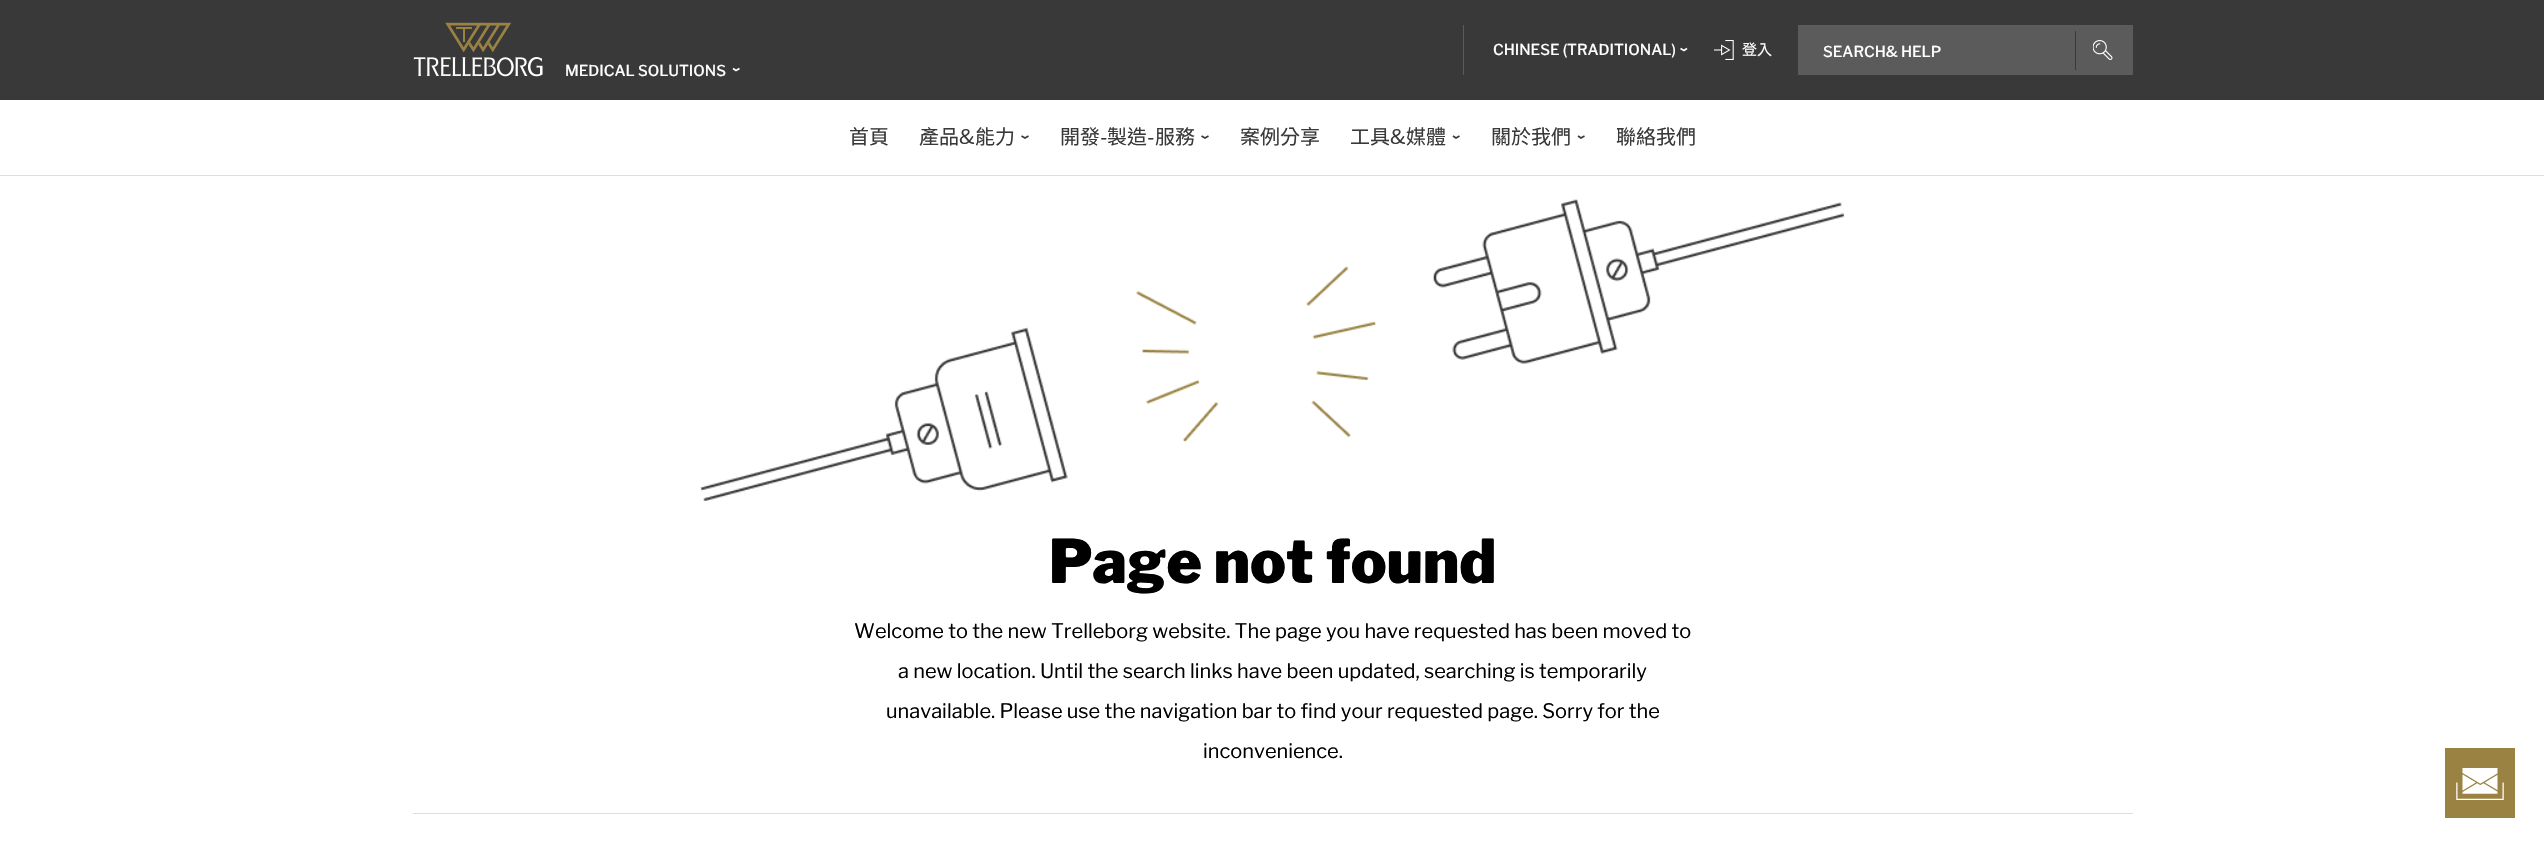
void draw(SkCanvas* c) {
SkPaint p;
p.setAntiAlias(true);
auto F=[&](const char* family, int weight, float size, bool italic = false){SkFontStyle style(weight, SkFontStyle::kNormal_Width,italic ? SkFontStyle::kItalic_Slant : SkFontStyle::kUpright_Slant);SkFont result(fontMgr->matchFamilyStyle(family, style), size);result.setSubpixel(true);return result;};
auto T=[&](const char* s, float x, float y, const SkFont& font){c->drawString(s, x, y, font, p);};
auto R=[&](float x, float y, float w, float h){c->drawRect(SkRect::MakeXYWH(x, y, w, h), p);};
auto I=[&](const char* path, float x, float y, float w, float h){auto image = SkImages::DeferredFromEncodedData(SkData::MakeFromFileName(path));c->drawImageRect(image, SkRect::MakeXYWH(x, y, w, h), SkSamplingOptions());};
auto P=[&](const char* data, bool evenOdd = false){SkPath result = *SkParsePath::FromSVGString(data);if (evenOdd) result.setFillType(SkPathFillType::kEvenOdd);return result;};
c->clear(0xffffffff);
p.setColor(0xff393939);
R(0,0,2544,100);
p.setColor(0xff5b5b5b);
R(1463,25,1,50);
auto f1 = F("Libre Franklin",500,15);
p.setColor(0xffffffff);
T("CHINESE (TRADITIONAL)",1493,55,f1);
p.setStroke(true);
p.setStrokeWidth(1.7);
c->drawPath(P("M1687 48.5l-3 2l-3.5-2"),p);
I("1.png",1714,40,20,20);
auto f2 = F("Noto Sans CJK TC",400,15);
p.setStroke(false);
T("登入",1742,55,f2);
p.setColor(0xff5b5b5b);
R(1798,25,335,50);
p.setColor(0xffffffff);
T("SEARCH& HELP",1823,57,f1);
p.setColor(0xff393939);
R(2075,31,1,39);
I("2.png",2093,40,20,20);
I("3.png",413,22,130,55);
p.setColor(0xffffffff);
T("MEDICAL SOLUTIONS",565,76,f1);
p.setStroke(true);
c->drawPath(P("M739.5 68.5l-3.5 2l-3-2"),p);
p.setStroke(false);
p.setColor(0xffdddddd);
R(0,175,2544,1);
auto f3 = F("Noto Sans CJK TC",400,20);
p.setColor(0xff393939);
T("首頁",849,144,f3);
T("產品",919,144,f3);
auto f4 = F("Libre Franklin",400,20);
T("&",959,144,f4);
T("能力",975,144,f3);
p.setStroke(true);
c->drawPath(P("M1028.5 136l-3.5 2l-3.5-2"),p);
p.setStroke(false);
T("開發",1060,144,f3);
T("-",1100,144,f4);
T("製造",1107,144,f3);
T("-",1147,144,f4);
T("服務",1155,144,f3);
p.setStroke(true);
c->drawPath(P("M1208.5 136l-3.5 2l-3.5-2"),p);
p.setStroke(false);
T("案例分享",1240,144,f3);
T("工具",1350,144,f3);
T("&",1390,144,f4);
T("媒體",1406,144,f3);
p.setStroke(true);
c->drawPath(P("M1459.5 136l-3.5 2l-3-2"),p);
p.setStroke(false);
T("關於我們",1491,144,f3);
p.setStroke(true);
c->drawPath(P("M1584.5 136l-3.5 2l-3-2"),p);
p.setStroke(false);
T("聯絡我們",1616,144,f3);
p.setColor(0xff998242);
R(2445,748,70,70);
I("4.png",2456,768,48,32);
I("5.png",700,199,1145,302);
auto f5 = F("Libre Franklin",900,60);
p.setColor(0xff000000);
T("Page not found",1049,583,f5);
T("Welcome to the new Trelleborg website. The page you have requested has been moved to",854,638,f4);
T("a new location. Until the search links have been updated, searching is temporarily",898,678,f4);
T("unavailable. Please use the navigation bar to find your requested page. Sorry for the",886,718,f4);
T("inconvenience.",1203,758,f4);
p.setColor(0xffdddddd);
R(413,813,1720,1);
}
